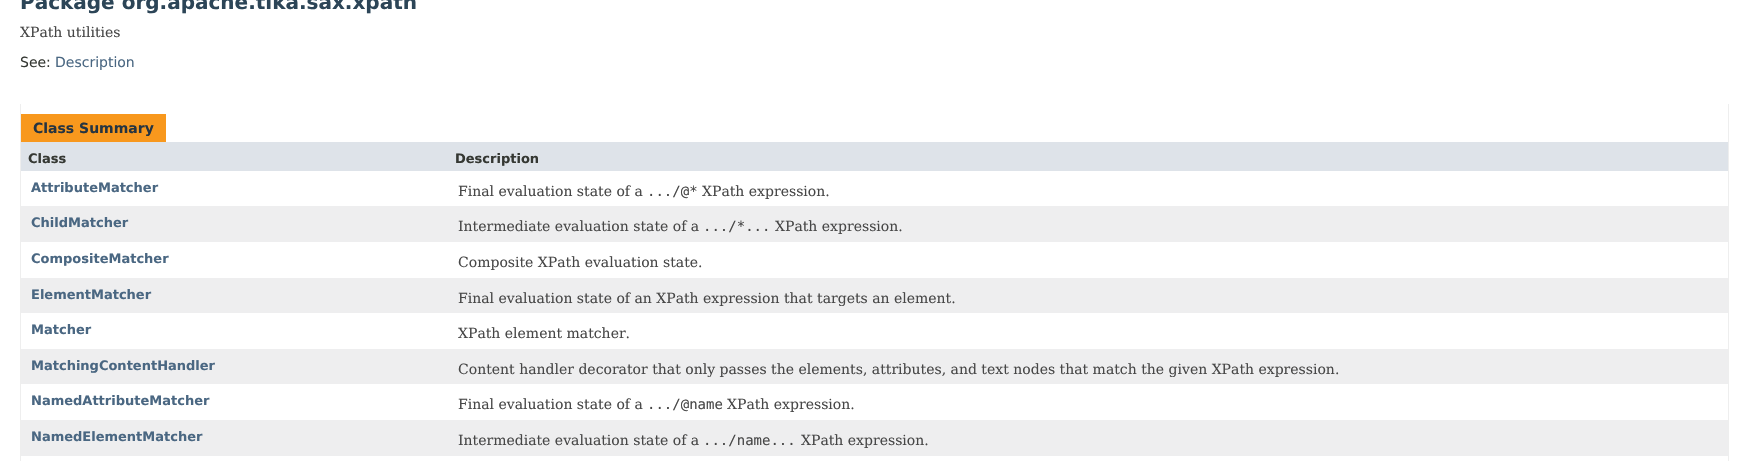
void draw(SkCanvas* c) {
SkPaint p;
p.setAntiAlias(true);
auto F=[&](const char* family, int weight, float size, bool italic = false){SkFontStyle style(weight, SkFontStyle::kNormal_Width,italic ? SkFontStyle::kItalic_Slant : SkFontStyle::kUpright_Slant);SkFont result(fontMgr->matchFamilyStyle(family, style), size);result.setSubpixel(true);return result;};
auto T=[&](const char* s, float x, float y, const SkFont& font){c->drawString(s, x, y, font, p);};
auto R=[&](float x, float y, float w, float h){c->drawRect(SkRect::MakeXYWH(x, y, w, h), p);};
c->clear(0xffffffff);
auto f1 = F("DejaVu Sans",700,20);
p.setColor(0xff2c4557);
T("Package org.apache.tika.sax.xpath",20,9,f1);
auto f2 = F("DejaVu Serif",400,14);
p.setColor(0xff474747);
T("XPath utilities",20,37,f2);
auto f3 = F("DejaVu Sans",400,14);
p.setColor(0xff353833);
T("See:",20,67,f3);
p.setColor(0xff4a6782);
T("Description",55,67,f3);
p.setColor(0xffeeeeee);
R(1728,104,1,357);
R(20,104,1,357);
p.setColor(0xfff8981d);
R(21,114,145,28);
auto f4 = F("DejaVu Sans",700,14);
p.setColor(0xff253441);
T("Class Summary",33,133,f4);
p.setColor(0xffdee3e9);
R(21,142,1707,29);
auto f5 = F("DejaVu Sans",700,13);
p.setColor(0xff353833);
T("Class",28,163,f5);
T("Description",455,163,f5);
p.setColor(0xff4a6782);
T("AttributeMatcher",31,192,f5);
p.setColor(0xff474747);
T("Final evaluation state of a",458,196,f2);
auto f6 = F("DejaVu Sans Mono",400,14);
T(".../@*",647,196,f6);
T("XPath expression.",702,196,f2);
p.setColor(0xffeeeeef);
R(21,206,1707,36);
p.setColor(0xff4a6782);
T("ChildMatcher",31,227,f5);
p.setColor(0xff474747);
T("Intermediate evaluation state of a",458,231,f2);
T(".../*...",703,231,f6);
T("XPath expression.",775,231,f2);
p.setColor(0xff4a6782);
T("CompositeMatcher",31,263,f5);
p.setColor(0xff474747);
T("Composite XPath evaluation state.",458,267,f2);
p.setColor(0xffeeeeef);
R(21,278,1707,35);
p.setColor(0xff4a6782);
T("ElementMatcher",31,299,f5);
p.setColor(0xff474747);
T("Final evaluation state of an XPath expression that targets an element.",458,303,f2);
p.setColor(0xff4a6782);
T("Matcher",31,334,f5);
p.setColor(0xff474747);
T("XPath element matcher.",458,338,f2);
p.setColor(0xffeeeeef);
R(21,349,1707,35);
p.setColor(0xff4a6782);
T("MatchingContentHandler",31,370,f5);
p.setColor(0xff474747);
T("Content handler decorator that only passes the elements, attributes, and text nodes that match the given XPath expression.",458,374,f2);
p.setColor(0xff4a6782);
T("NamedAttributeMatcher",31,405,f5);
p.setColor(0xff474747);
T("Final evaluation state of a",458,409,f2);
T(".../@name",647,409,f6);
T("XPath expression.",727,409,f2);
p.setColor(0xffeeeeef);
R(21,420,1707,36);
p.setColor(0xff4a6782);
T("NamedElementMatcher",31,441,f5);
p.setColor(0xff474747);
T("Intermediate evaluation state of a",458,445,f2);
T(".../name...",703,445,f6);
T("XPath expression.",801,445,f2);
}
